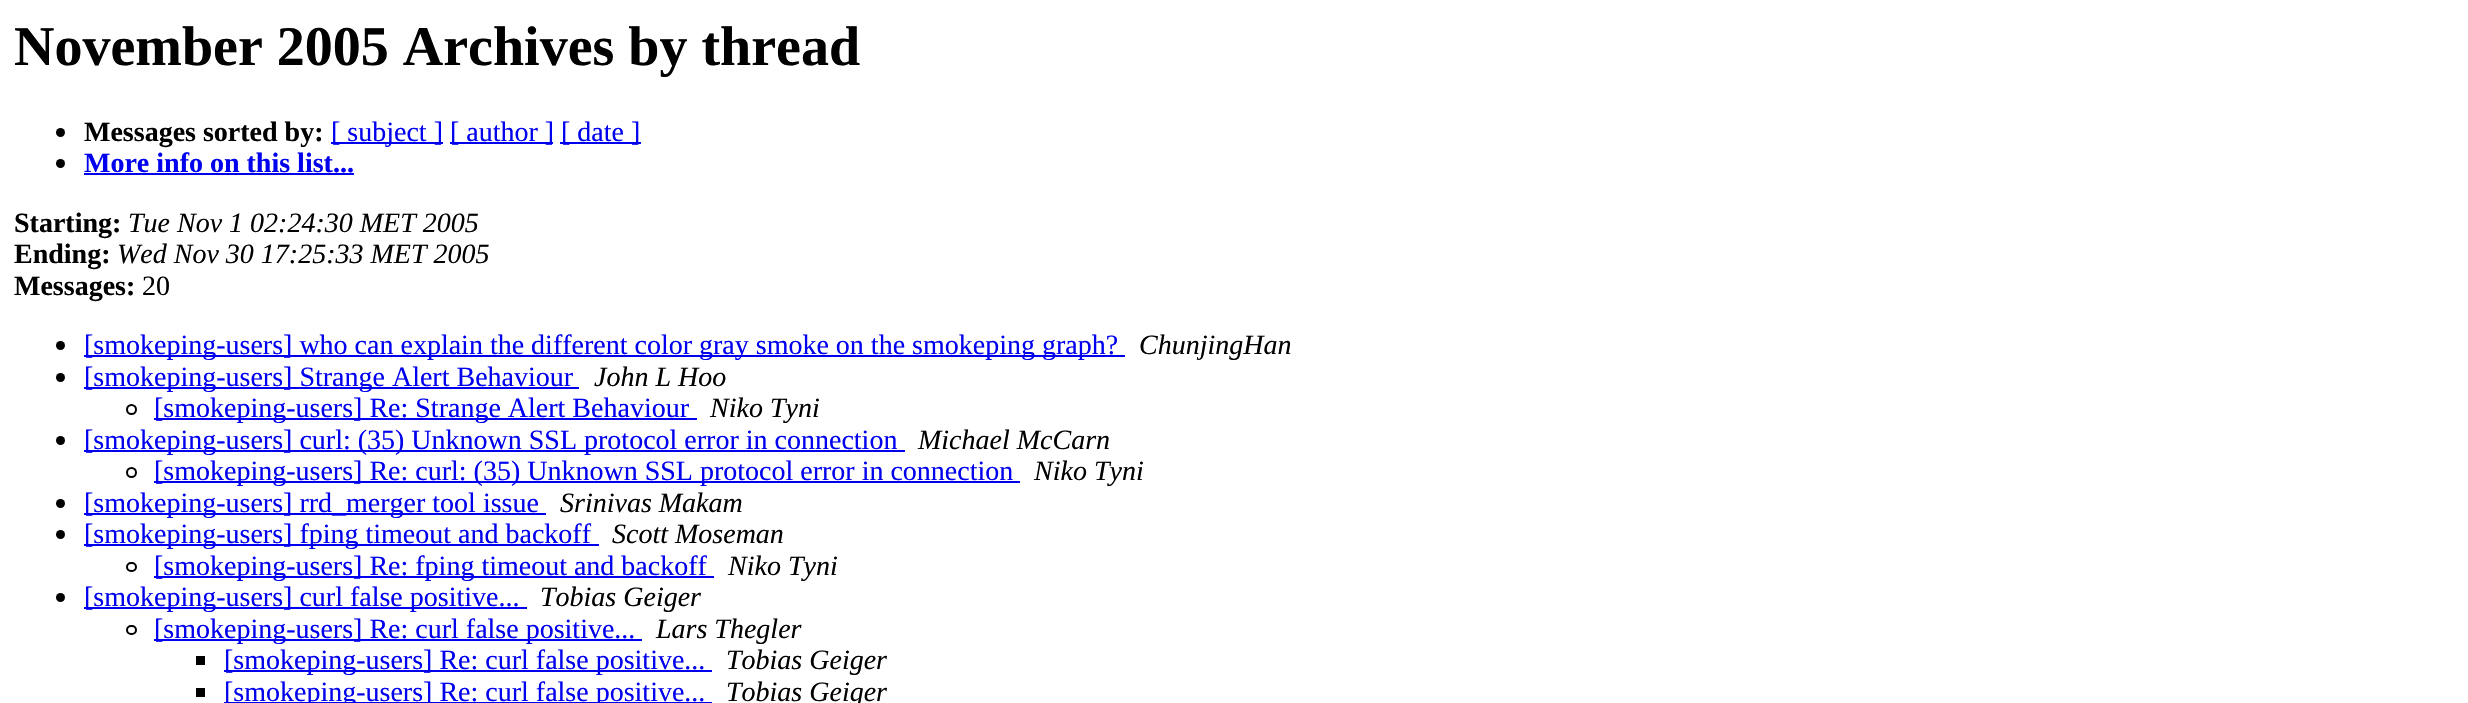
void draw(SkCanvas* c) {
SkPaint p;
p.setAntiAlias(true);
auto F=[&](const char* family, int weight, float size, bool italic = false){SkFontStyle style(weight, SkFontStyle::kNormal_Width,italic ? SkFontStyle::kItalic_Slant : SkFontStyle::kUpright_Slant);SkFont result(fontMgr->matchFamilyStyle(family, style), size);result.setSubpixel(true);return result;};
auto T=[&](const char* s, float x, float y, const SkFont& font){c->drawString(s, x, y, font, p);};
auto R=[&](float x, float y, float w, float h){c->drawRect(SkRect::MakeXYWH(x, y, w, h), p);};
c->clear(0xffffffff);
auto f1 = F("Liberation Serif",700,56);
p.setColor(0xff000000);
T("November 2005 Archives by thread",14,65,f1);
c->drawCircle(60.5,132.5,4.5,p);
auto f2 = F("Liberation Serif",700,28);
T("Messages sorted by:",84,141,f2);
p.setColor(0xff0000ee);
R(331,142,112,2);
auto f3 = F("Liberation Serif",400,28);
T("[ subject ]",331,141,f3);
R(450,142,103,2);
T("[ author ]",450,141,f3);
R(560,142,81,2);
T("[ date ]",561,141,f3);
p.setColor(0xff000000);
c->drawCircle(60.5,163.5,4.5,p);
p.setColor(0xff0000ee);
T("More info on this list...",84,172,f2);
R(84,173,270,2);
p.setColor(0xff000000);
T("Starting:",14,232,f2);
auto f4 = F("Liberation Serif",400,28,true);
T("Tue Nov 1 02:24:30 MET 2005",128,232,f4);
T("Ending:",14,263,f2);
T("Wed Nov 30 17:25:33 MET 2005",117,263,f4);
T("Messages:",14,295,f2);
T("20",142,295,f3);
c->drawCircle(60.5,345.5,4.5,p);
p.setColor(0xff0000ee);
R(84,355,1041,2);
T("[smokeping-users] who can explain the different color gray smoke on the smokeping graph?",84,354,f3);
p.setColor(0xff000000);
T("ChunjingHan",1139,354,f4);
c->drawCircle(60.5,377.5,4.5,p);
p.setColor(0xff0000ee);
R(84,387,495,2);
T("[smokeping-users] Strange Alert Behaviour",84,386,f3);
p.setColor(0xff000000);
T("John L Hoo",594,386,f4);
p.setStroke(true);
p.setStrokeWidth(2);
c->drawCircle(131.5,409.5,4.5,p);
p.setStroke(false);
p.setColor(0xff0000ee);
R(154,418,543,2);
T("[smokeping-users] Re: Strange Alert Behaviour",154,417,f3);
p.setColor(0xff000000);
T("Niko Tyni",710,417,f4);
c->drawCircle(60.5,440.5,4.5,p);
p.setColor(0xff0000ee);
R(84,450,821,2);
T("[smokeping-users] curl: (35) Unknown SSL protocol error in connection",84,449,f3);
p.setColor(0xff000000);
T("Michael McCarn",918,449,f4);
p.setStroke(true);
c->drawCircle(131.5,472.5,4.5,p);
p.setStroke(false);
p.setColor(0xff0000ee);
R(154,481,866,2);
T("[smokeping-users] Re: curl: (35) Unknown SSL protocol error in connection",154,480,f3);
p.setColor(0xff000000);
T("Niko Tyni",1034,480,f4);
c->drawCircle(60.5,503.5,4.5,p);
p.setColor(0xff0000ee);
R(84,513,462,2);
T("[smokeping-users] rrd_merger tool issue",84,512,f3);
p.setColor(0xff000000);
T("Srinivas Makam",560,512,f4);
c->drawCircle(60.5,534.5,4.5,p);
p.setColor(0xff0000ee);
R(84,544,515,2);
T("[smokeping-users] fping timeout and backoff",84,543,f3);
p.setColor(0xff000000);
T("Scott Moseman",612,543,f4);
p.setStroke(true);
c->drawRoundRect(SkRect::MakeXYWH(127,563,9,8),4,4,p);
p.setStroke(false);
p.setColor(0xff0000ee);
R(154,576,560,2);
T("[smokeping-users] Re: fping timeout and backoff",154,575,f3);
p.setColor(0xff000000);
T("Niko Tyni",728,575,f4);
c->drawCircle(60.5,597.5,4.5,p);
p.setColor(0xff0000ee);
R(84,607,443,2);
T("[smokeping-users] curl false positive...",84,606,f3);
p.setColor(0xff000000);
T("Tobias Geiger",540,606,f4);
p.setStroke(true);
c->drawRoundRect(SkRect::MakeXYWH(127,626,9,8),4,4,p);
p.setStroke(false);
p.setColor(0xff0000ee);
R(154,639,488,2);
T("[smokeping-users] Re: curl false positive...",154,638,f3);
p.setColor(0xff000000);
T("Lars Thegler",656,638,f4);
R(196,656,9,9);
p.setColor(0xff0000ee);
R(224,670,488,2);
T("[smokeping-users] Re: curl false positive...",224,669,f3);
p.setColor(0xff000000);
T("Tobias Geiger",726,669,f4);
R(196,688,9,9);
p.setColor(0xff0000ee);
R(224,702,488,1);
T("[smokeping-users] Re: curl false positive...",224,701,f3);
p.setColor(0xff000000);
T("Tobias Geiger",726,701,f4);
}
